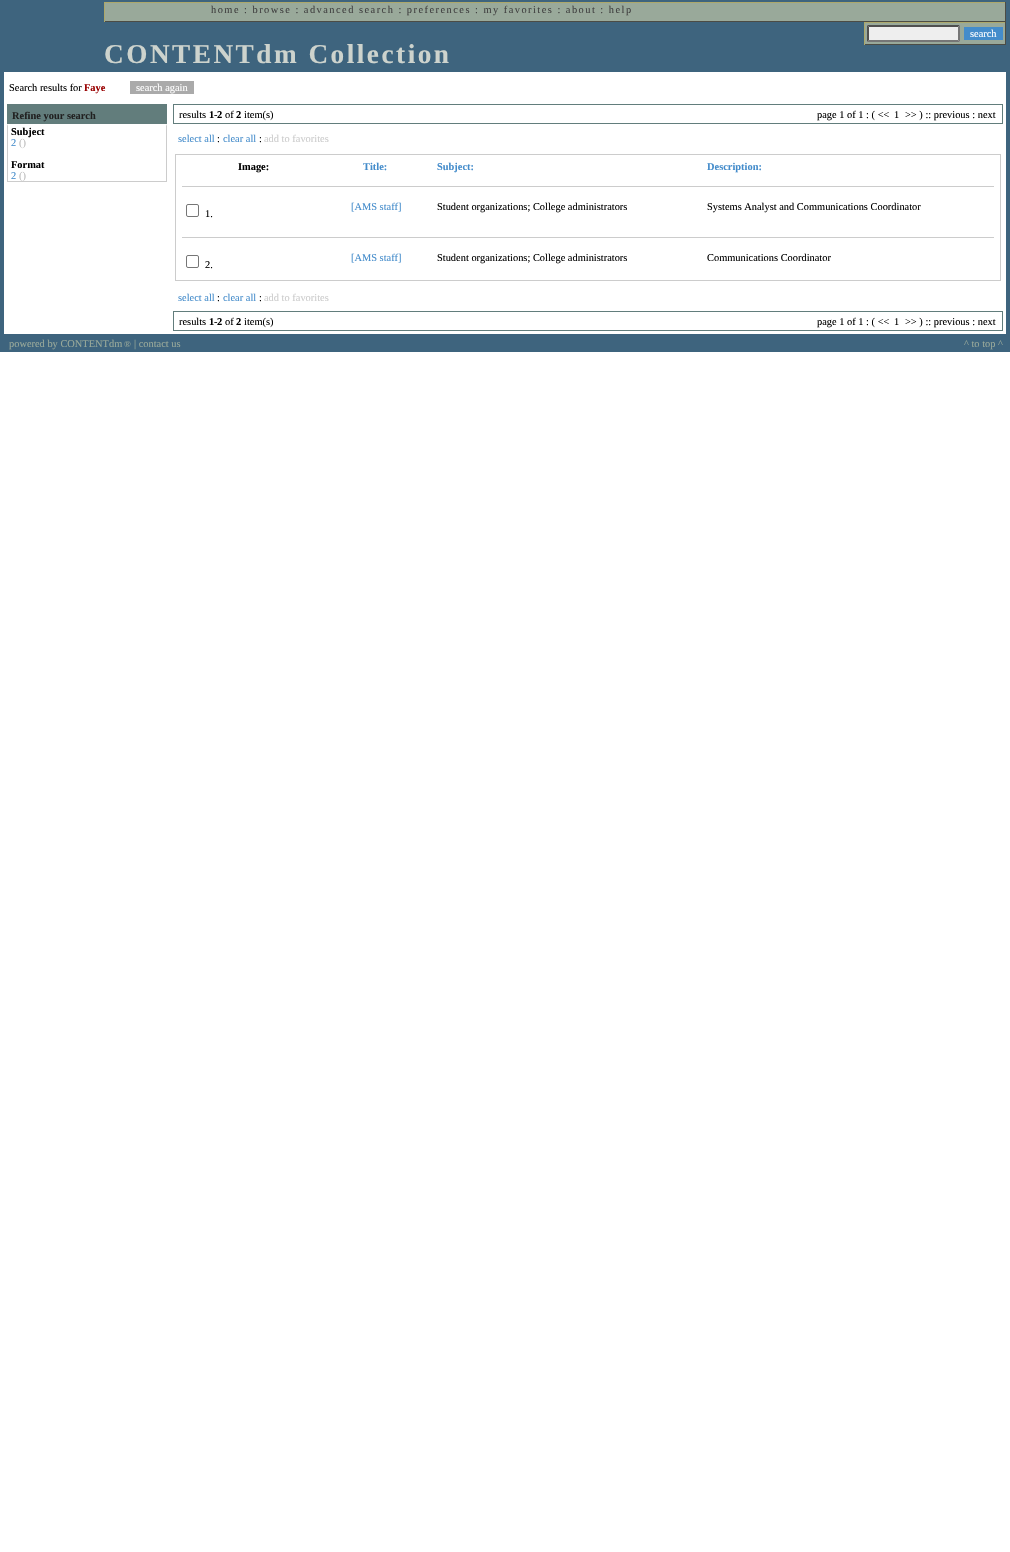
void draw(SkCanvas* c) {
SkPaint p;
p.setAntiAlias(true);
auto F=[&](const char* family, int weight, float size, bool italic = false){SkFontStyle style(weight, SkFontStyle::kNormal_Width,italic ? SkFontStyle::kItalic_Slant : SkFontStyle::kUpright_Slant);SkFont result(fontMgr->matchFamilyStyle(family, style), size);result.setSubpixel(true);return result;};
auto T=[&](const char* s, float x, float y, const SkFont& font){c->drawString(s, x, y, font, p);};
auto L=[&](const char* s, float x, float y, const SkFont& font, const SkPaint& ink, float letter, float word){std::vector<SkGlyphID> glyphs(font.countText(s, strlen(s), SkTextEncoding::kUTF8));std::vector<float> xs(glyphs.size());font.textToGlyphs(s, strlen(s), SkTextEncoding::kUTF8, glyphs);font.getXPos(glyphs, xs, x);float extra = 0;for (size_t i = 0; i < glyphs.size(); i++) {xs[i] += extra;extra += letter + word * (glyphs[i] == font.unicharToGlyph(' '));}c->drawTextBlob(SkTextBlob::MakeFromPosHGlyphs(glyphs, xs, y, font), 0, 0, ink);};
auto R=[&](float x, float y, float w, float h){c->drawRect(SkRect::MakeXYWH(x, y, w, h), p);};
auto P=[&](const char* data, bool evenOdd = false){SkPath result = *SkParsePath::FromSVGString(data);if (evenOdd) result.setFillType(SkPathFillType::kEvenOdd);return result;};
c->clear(0xffffffff);
p.setColor(0xff3e647e);
R(0,0,4,352);
R(4,0,1002,72);
p.setColor(0xff99a99a);
R(105,3,900,18);
p.setColor(0xffada86b);
R(104,2,902,1);
p.setColor(0xff4c4c45);
R(104,21,890,1);
p.setColor(0xffada86b);
R(104,2,1,20);
auto f1 = F("Liberation Serif",400,10.4);
p.setColor(0xff404040);
L("home : browse : advanced search : preferences : my favorites : about : help",211,13,f1,p,1.47,0);
p.setColor(0xff4c4c45);
R(1005,2,1,20);
R(994,21,12,1);
p.setColor(0xff99a99a);
R(865,23,140,21);
p.setColor(0xffada86b);
R(864,22,142,1);
p.setColor(0xff4c4c45);
R(864,44,98,1);
p.setColor(0xffada86b);
R(864,22,1,23);
p.setColor(0xffeeeeee);
R(867,25,93,17);
p.setColor(0xff4f4f4f);
c->drawPath(P("M867 25h93l-2 2h-89z"),p);
p.setColor(0xff767676);
c->drawPath(P("M960 25v17l-2-2v-13z"),p);
c->drawPath(P("M960 42h-93l2-2h89z"),p);
p.setColor(0xff4f4f4f);
c->drawPath(P("M867 42v-17l2 2v13z"),p);
p.setColor(0xff4c4c45);
R(1005,22,1,23);
R(962,44,44,1);
p.setColor(0xff448ccb);
R(964,27,39,13);
p.setColor(0xffffffff);
T("search",970,37,f1);
auto f2 = F("Liberation Serif",700,27.25);
p.setColor(0xffcdd3cd);
L("CONTENTdm Collection",104,63,f2,p,2.5,0);
p.setColor(0xff3e647e);
R(1006,0,4,352);
p.setColor(0xff000000);
T("Search results for",9,91,f1);
auto f3 = F("Liberation Serif",700,10.4);
p.setColor(0xff990000);
T("Faye",84,91,f3);
p.setColor(0xffaaaaaa);
R(130,81,64,13);
p.setColor(0xffffffff);
T("search again",136,91,f1);
p.setColor(0xff627d7c);
R(7,104,160,20);
p.setColor(0xff202020);
T("Refine your search",12,119,f3);
p.setColor(0xffcccccc);
c->drawPath(P("M167 124v58l-1-1v-55z"),p);
R(7,181,160,1);
c->drawPath(P("M7 182v-58l1 2v55z"),p);
p.setColor(0xff000000);
T("Subject",11,135,f3);
p.setColor(0xff448ccb);
T("2",11,146,f1);
p.setColor(0xffbbbbbb);
T("()",19,146,f1);
p.setColor(0xff000000);
T("Format",11,168,f3);
p.setColor(0xff448ccb);
T("2",11,179,f1);
p.setColor(0xffbbbbbb);
T("()",19,179,f1);
p.setColor(0xff627d7c);
R(173,104,830,1);
R(173,123,822,1);
R(173,104,1,20);
p.setColor(0xff000000);
T("results",179,118,f1);
T("1",209,118,f3);
T("-",214,118,f1);
T("2",217,118,f3);
T("of",225,118,f1);
T("2",236,118,f3);
T("item(s)",244,118,f1);
T("page 1 of 1 : ( <<",817,118,f1);
T("1",894,118,f1);
T(">> ) :: previous : next",905,118,f1);
p.setColor(0xff627d7c);
R(1002,104,1,20);
R(995,123,8,1);
p.setColor(0xff448ccb);
T("select all",178,142,f1);
p.setColor(0xff000000);
T(":",217,142,f1);
p.setColor(0xff448ccb);
T("clear all",223,142,f1);
p.setColor(0xff000000);
T(":",259,142,f1);
p.setColor(0xffcccccc);
T("add to favorites",264,142,f1);
p.setStroke(true);
p.setStrokeWidth(1);
c->drawRect(SkRect::MakeXYWH(175.5,154.5,825,126),p);
p.setStroke(false);
p.setColor(0xff000000);
T("Image:",238,170,f3);
p.setColor(0xff448ccb);
T("Title:",363,170,f3);
T("Subject:",437,170,f3);
T("Description:",707,170,f3);
p.setColor(0xffcccccc);
R(182,186,812,1);
p.setColor(0xff448ccb);
T("[AMS staff]",351,210,f1);
p.setColor(0xff000000);
T("Student organizations; College administrators",437,210,f1);
T("Systems Analyst and Communications Coordinator",707,210,f1);
p.setStroke(true);
p.setColor(0xff767676);
c->drawRoundRect(SkRect::MakeXYWH(186.5,204.5,12,12),1.5,1.5,p);
p.setStroke(false);
p.setColor(0xff000000);
T("1.",205,217,f1);
p.setColor(0xffcccccc);
R(182,237,812,1);
p.setColor(0xff448ccb);
T("[AMS staff]",351,261,f1);
p.setColor(0xff000000);
T("Student organizations; College administrators",437,261,f1);
T("Communications Coordinator",707,261,f1);
p.setStroke(true);
p.setColor(0xff767676);
c->drawRoundRect(SkRect::MakeXYWH(186.5,255.5,12,12),1.5,1.5,p);
p.setStroke(false);
p.setColor(0xff000000);
T("2.",205,268,f1);
p.setColor(0xff448ccb);
T("select all",178,301,f1);
p.setColor(0xff000000);
T(":",217,301,f1);
p.setColor(0xff448ccb);
T("clear all",223,301,f1);
p.setColor(0xff000000);
T(":",259,301,f1);
p.setColor(0xffcccccc);
T("add to favorites",264,301,f1);
p.setColor(0xff627d7c);
R(173,311,830,1);
R(173,330,822,1);
R(173,311,1,20);
p.setColor(0xff000000);
T("results",179,325,f1);
T("1",209,325,f3);
T("-",214,325,f1);
T("2",217,325,f3);
T("of",225,325,f1);
T("2",236,325,f3);
T("item(s)",244,325,f1);
T("page 1 of 1 : ( <<",817,325,f1);
T("1",894,325,f1);
T(">> ) :: previous : next",905,325,f1);
p.setColor(0xff627d7c);
R(1002,311,1,20);
R(995,330,8,1);
p.setColor(0xff3e647e);
R(4,334,1002,18);
p.setColor(0xff99a99a);
T("powered by CONTENTdm",9,347,f1);
auto f4 = F("Liberation Serif",400,9);
T("®",124,347,f4);
T("| contact us",134,347,f1);
T("^ to top ^",964,347,f1);
}
